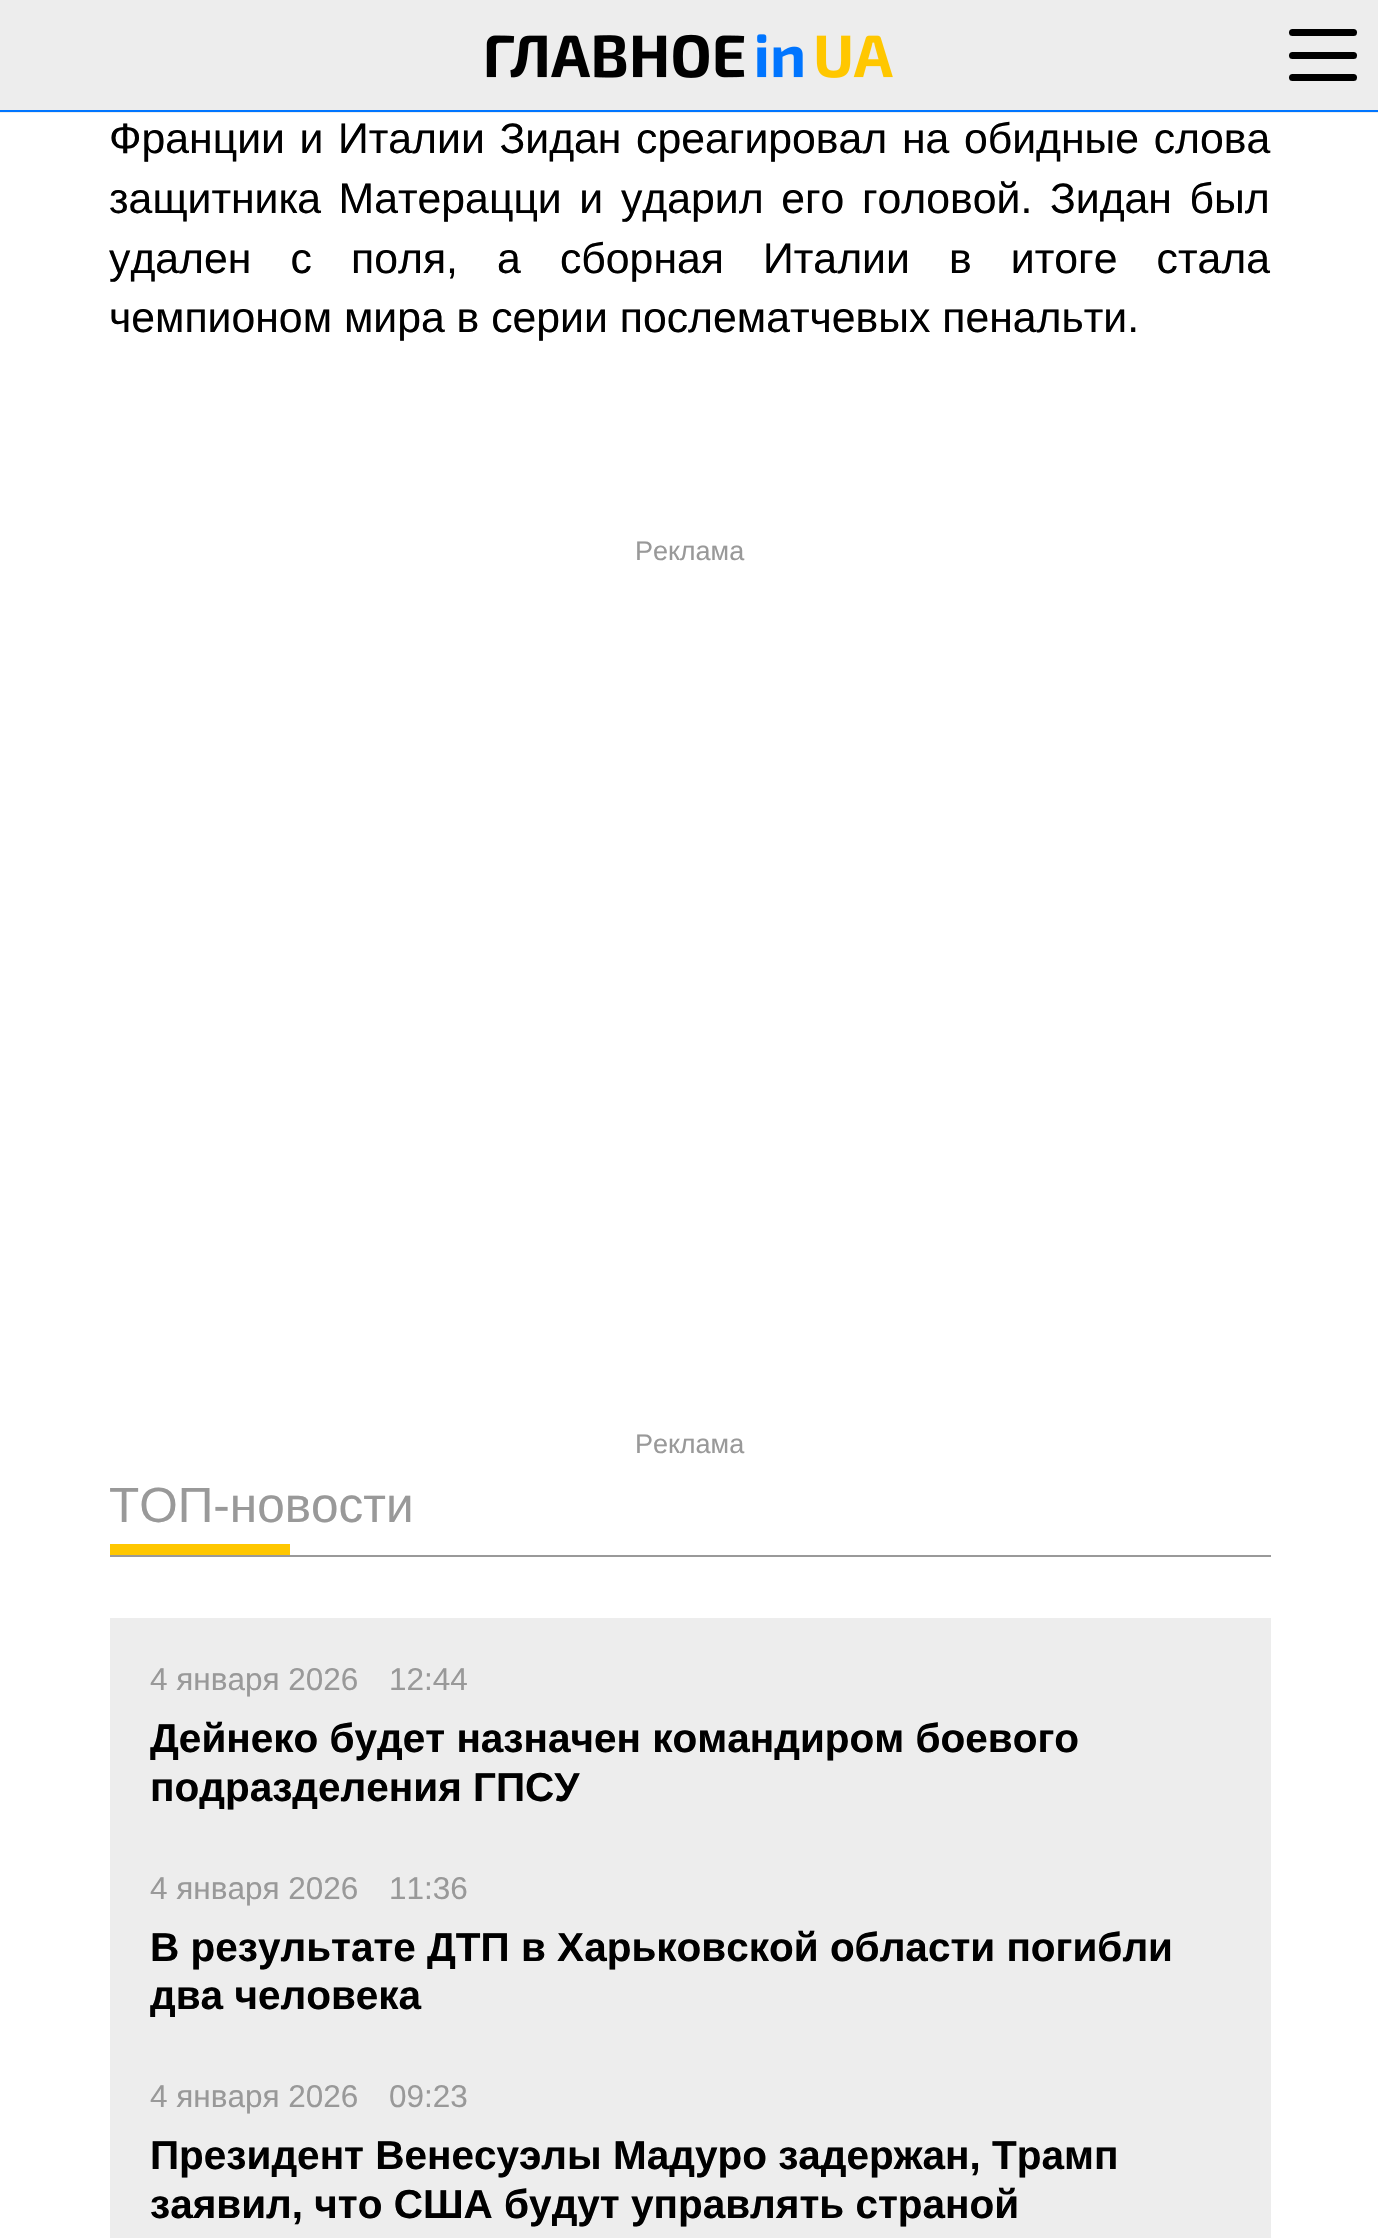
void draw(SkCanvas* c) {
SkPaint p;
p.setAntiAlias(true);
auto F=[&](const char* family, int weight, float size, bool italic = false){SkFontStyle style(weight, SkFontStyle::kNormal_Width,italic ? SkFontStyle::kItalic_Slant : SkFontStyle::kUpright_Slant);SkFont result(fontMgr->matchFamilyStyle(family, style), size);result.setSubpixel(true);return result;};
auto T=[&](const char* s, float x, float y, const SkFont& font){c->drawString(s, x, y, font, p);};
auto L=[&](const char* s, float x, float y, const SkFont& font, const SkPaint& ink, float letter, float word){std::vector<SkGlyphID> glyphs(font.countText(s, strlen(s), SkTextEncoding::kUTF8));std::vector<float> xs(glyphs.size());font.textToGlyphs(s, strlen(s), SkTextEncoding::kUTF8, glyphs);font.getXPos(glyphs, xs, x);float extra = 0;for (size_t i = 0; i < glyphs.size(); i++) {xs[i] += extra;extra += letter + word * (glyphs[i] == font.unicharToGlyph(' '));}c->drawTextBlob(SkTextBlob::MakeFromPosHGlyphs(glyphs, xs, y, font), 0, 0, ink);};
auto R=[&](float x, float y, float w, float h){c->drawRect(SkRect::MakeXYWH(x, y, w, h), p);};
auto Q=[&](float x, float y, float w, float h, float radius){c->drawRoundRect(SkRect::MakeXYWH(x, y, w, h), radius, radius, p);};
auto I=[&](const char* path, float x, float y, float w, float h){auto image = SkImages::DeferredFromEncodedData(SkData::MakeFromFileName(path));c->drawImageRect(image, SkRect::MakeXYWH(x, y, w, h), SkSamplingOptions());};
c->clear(0xffffffff);
p.setColor(0xffededed);
R(0,0,1378,113);
p.setColor(0xff0075ff);
R(0,110,1378,2);
I("1.png",486,34,407,44);
p.setColor(0xff000000);
Q(1289,29,68,7,3.5);
Q(1289,52,68,7,3.5);
Q(1289,74,68,7,3.5);
auto f1 = F("Liberation Sans",400,42.75);
L("Франции и Италии Зидан среагировал на обидные слова",109,153,f1,p,0,2.75);
L("защитника Матерацци и ударил его головой. Зидан был",109,213,f1,p,0,5.75);
L("удален с поля, а сборная Италии в итоге стала",109,273,f1,p,0,27.25);
T("чемпионом мира в серии послематчевых пенальти.",109,332,f1);
auto f2 = F("Liberation Sans",400,27);
p.setColor(0xff999999);
T("Реклама",635,560,f2);
T("Реклама",635,1453,f2);
R(110,1555,1161,2);
auto f3 = F("Liberation Sans",400,49.5);
T("ТОП-новости",109,1522,f3);
p.setColor(0xffffc700);
R(110,1544,180,11);
p.setColor(0xffededed);
R(110,1618,1161,620);
auto f4 = F("Liberation Sans",400,31.5);
p.setColor(0xff999999);
T("4 января 2026",150,1690,f4);
T("12:44",389,1690,f4);
auto f5 = F("Liberation Sans",700,40.5);
p.setColor(0xff000000);
T("Дейнеко будет назначен командиром боевого",150,1752,f5);
T("подразделения ГПСУ",150,1801,f5);
p.setColor(0xff999999);
T("4 января 2026",150,1899,f4);
T("11:36",389,1899,f4);
p.setColor(0xff000000);
T("В результате ДТП в Харьковской области погибли",150,1961,f5);
T("два человека",150,2009,f5);
p.setColor(0xff999999);
T("4 января 2026",150,2107,f4);
T("09:23",389,2107,f4);
p.setColor(0xff000000);
T("Президент Венесуэлы Мадуро задержан, Трамп",150,2169,f5);
T("заявил, что США будут управлять страной",150,2218,f5);
}
